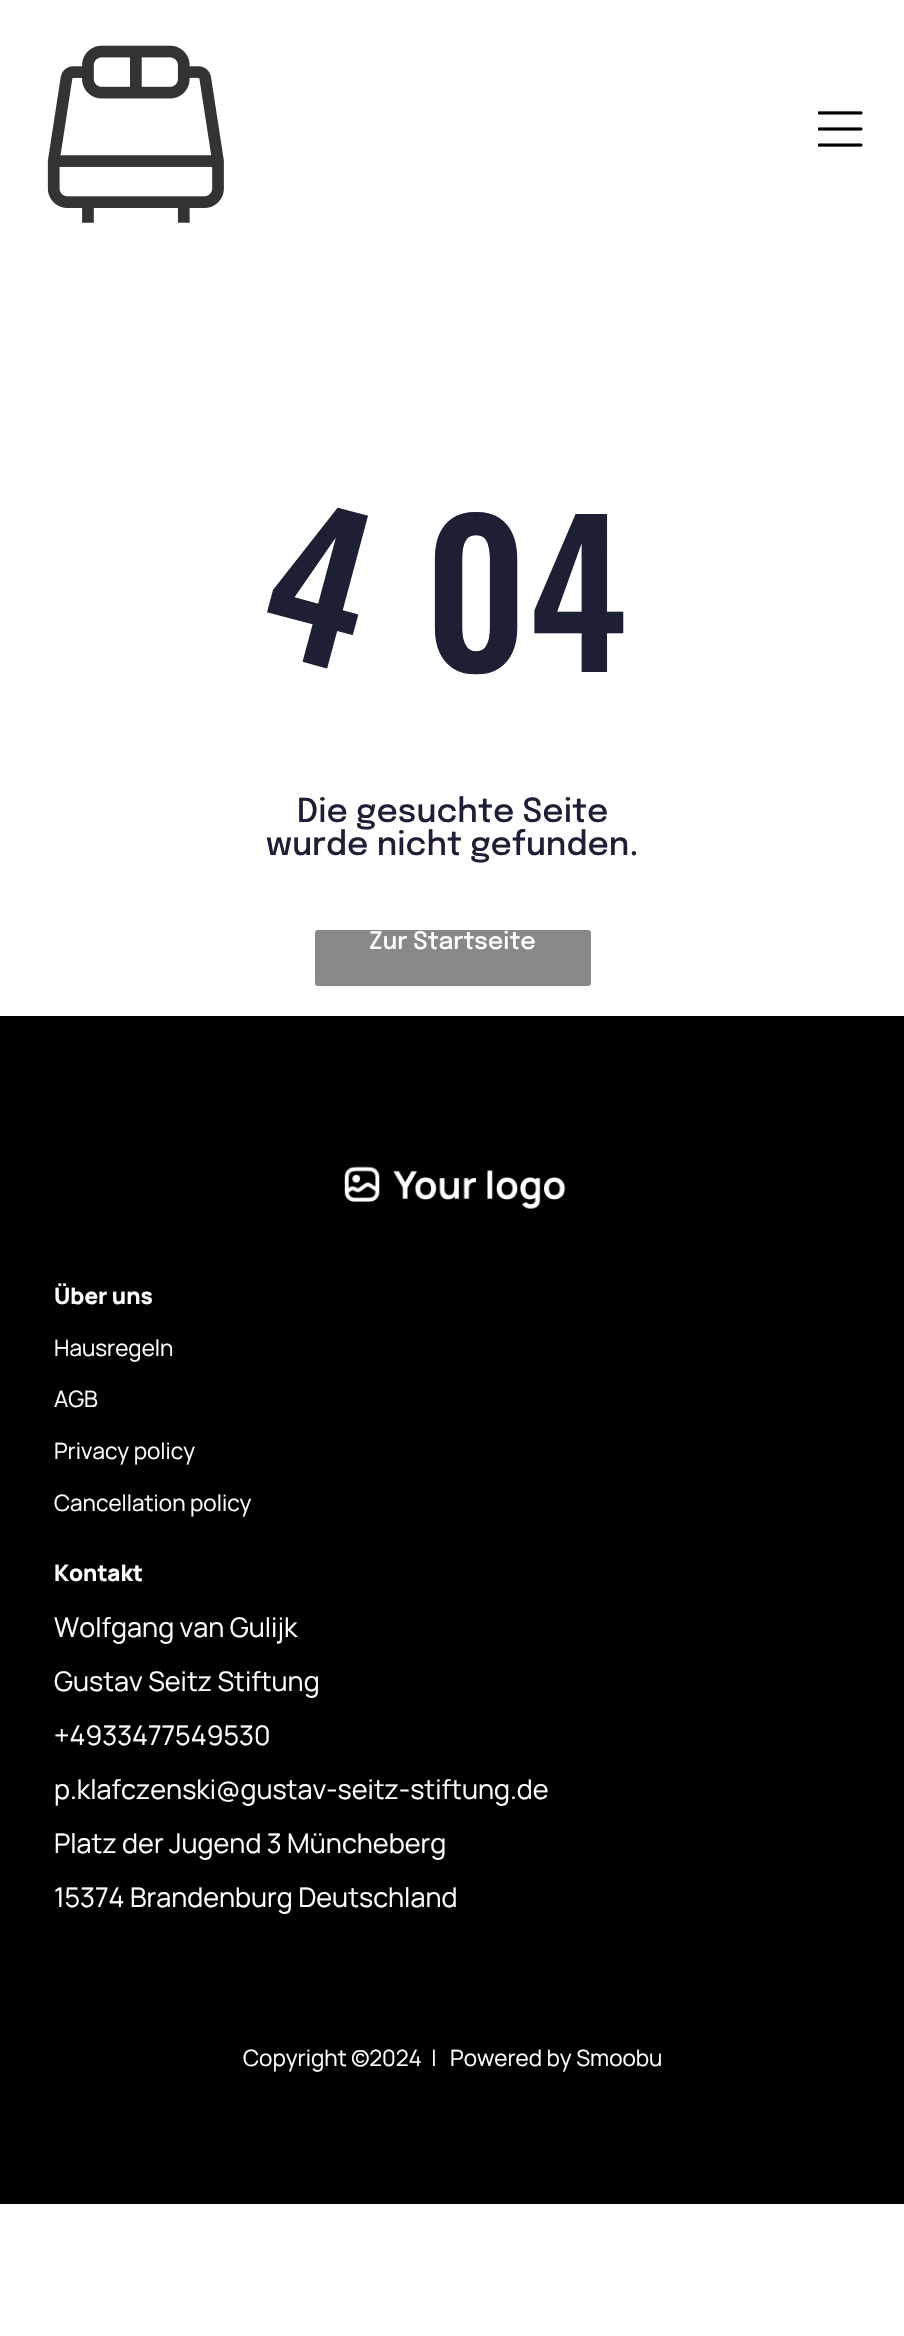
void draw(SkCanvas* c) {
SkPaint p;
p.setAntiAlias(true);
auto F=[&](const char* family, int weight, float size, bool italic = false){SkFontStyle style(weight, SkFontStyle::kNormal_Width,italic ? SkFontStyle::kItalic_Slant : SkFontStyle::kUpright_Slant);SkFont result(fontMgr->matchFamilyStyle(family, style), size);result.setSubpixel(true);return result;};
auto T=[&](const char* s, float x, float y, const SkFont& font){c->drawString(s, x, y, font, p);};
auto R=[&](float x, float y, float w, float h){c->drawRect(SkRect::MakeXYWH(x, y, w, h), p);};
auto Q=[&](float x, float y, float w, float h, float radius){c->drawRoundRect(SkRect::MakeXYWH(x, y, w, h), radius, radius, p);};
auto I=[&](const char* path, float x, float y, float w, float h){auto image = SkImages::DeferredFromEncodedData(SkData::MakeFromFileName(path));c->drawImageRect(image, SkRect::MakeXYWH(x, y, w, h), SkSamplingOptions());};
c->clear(0xffffffff);
I("1.png",47,45,177,178);
I("2.png",818,111,45,36);
auto f1 = F("Oswald",500,195);
p.setColor(0xff1d2035);
c->save();
c->rotate(15,251,648);
T("4",251,648,f1);
c->restore();
T("04",424,672,f1);
auto f2 = F("Epilogue",500,33);
T("Die gesuchte Seite",297,822,f2);
T("wurde nicht gefunden.",266,855,f2);
p.setColor(0xff898989);
Q(315,930,276,56,3);
auto f3 = F("Epilogue",500,24);
p.setColor(0xffffffff);
T("Zur Startseite",369,949,f3);
p.setColor(0xff000000);
R(0,1016,904,1188);
I("3.png",344,1166,222,43);
auto f4 = F("Manrope",800,22.5);
p.setColor(0xffffffff);
T("Über uns",54,1304,f4);
auto f5 = F("Manrope",400,22.5);
T("Hausregeln",54,1356,f5);
T("AGB",54,1407,f5);
T("Privacy policy",54,1459,f5);
T("Cancellation policy",54,1511,f5);
T("Kontakt",54,1581,f4);
auto f6 = F("Manrope",400,27);
T("Wolfgang van Gulijk",54,1637,f6);
T("Gustav Seitz Stiftung",54,1691,f6);
T("+4933477549530",54,1745,f6);
T("p.klafczenski@gustav-seitz-stiftung.de",54,1799,f6);
T("Platz der Jugend 3 Müncheberg",54,1853,f6);
T("15374 Brandenburg Deutschland",54,1907,f6);
T("Copyright ©2024  |   Powered by Smoobu",243,2066,f5);
}
